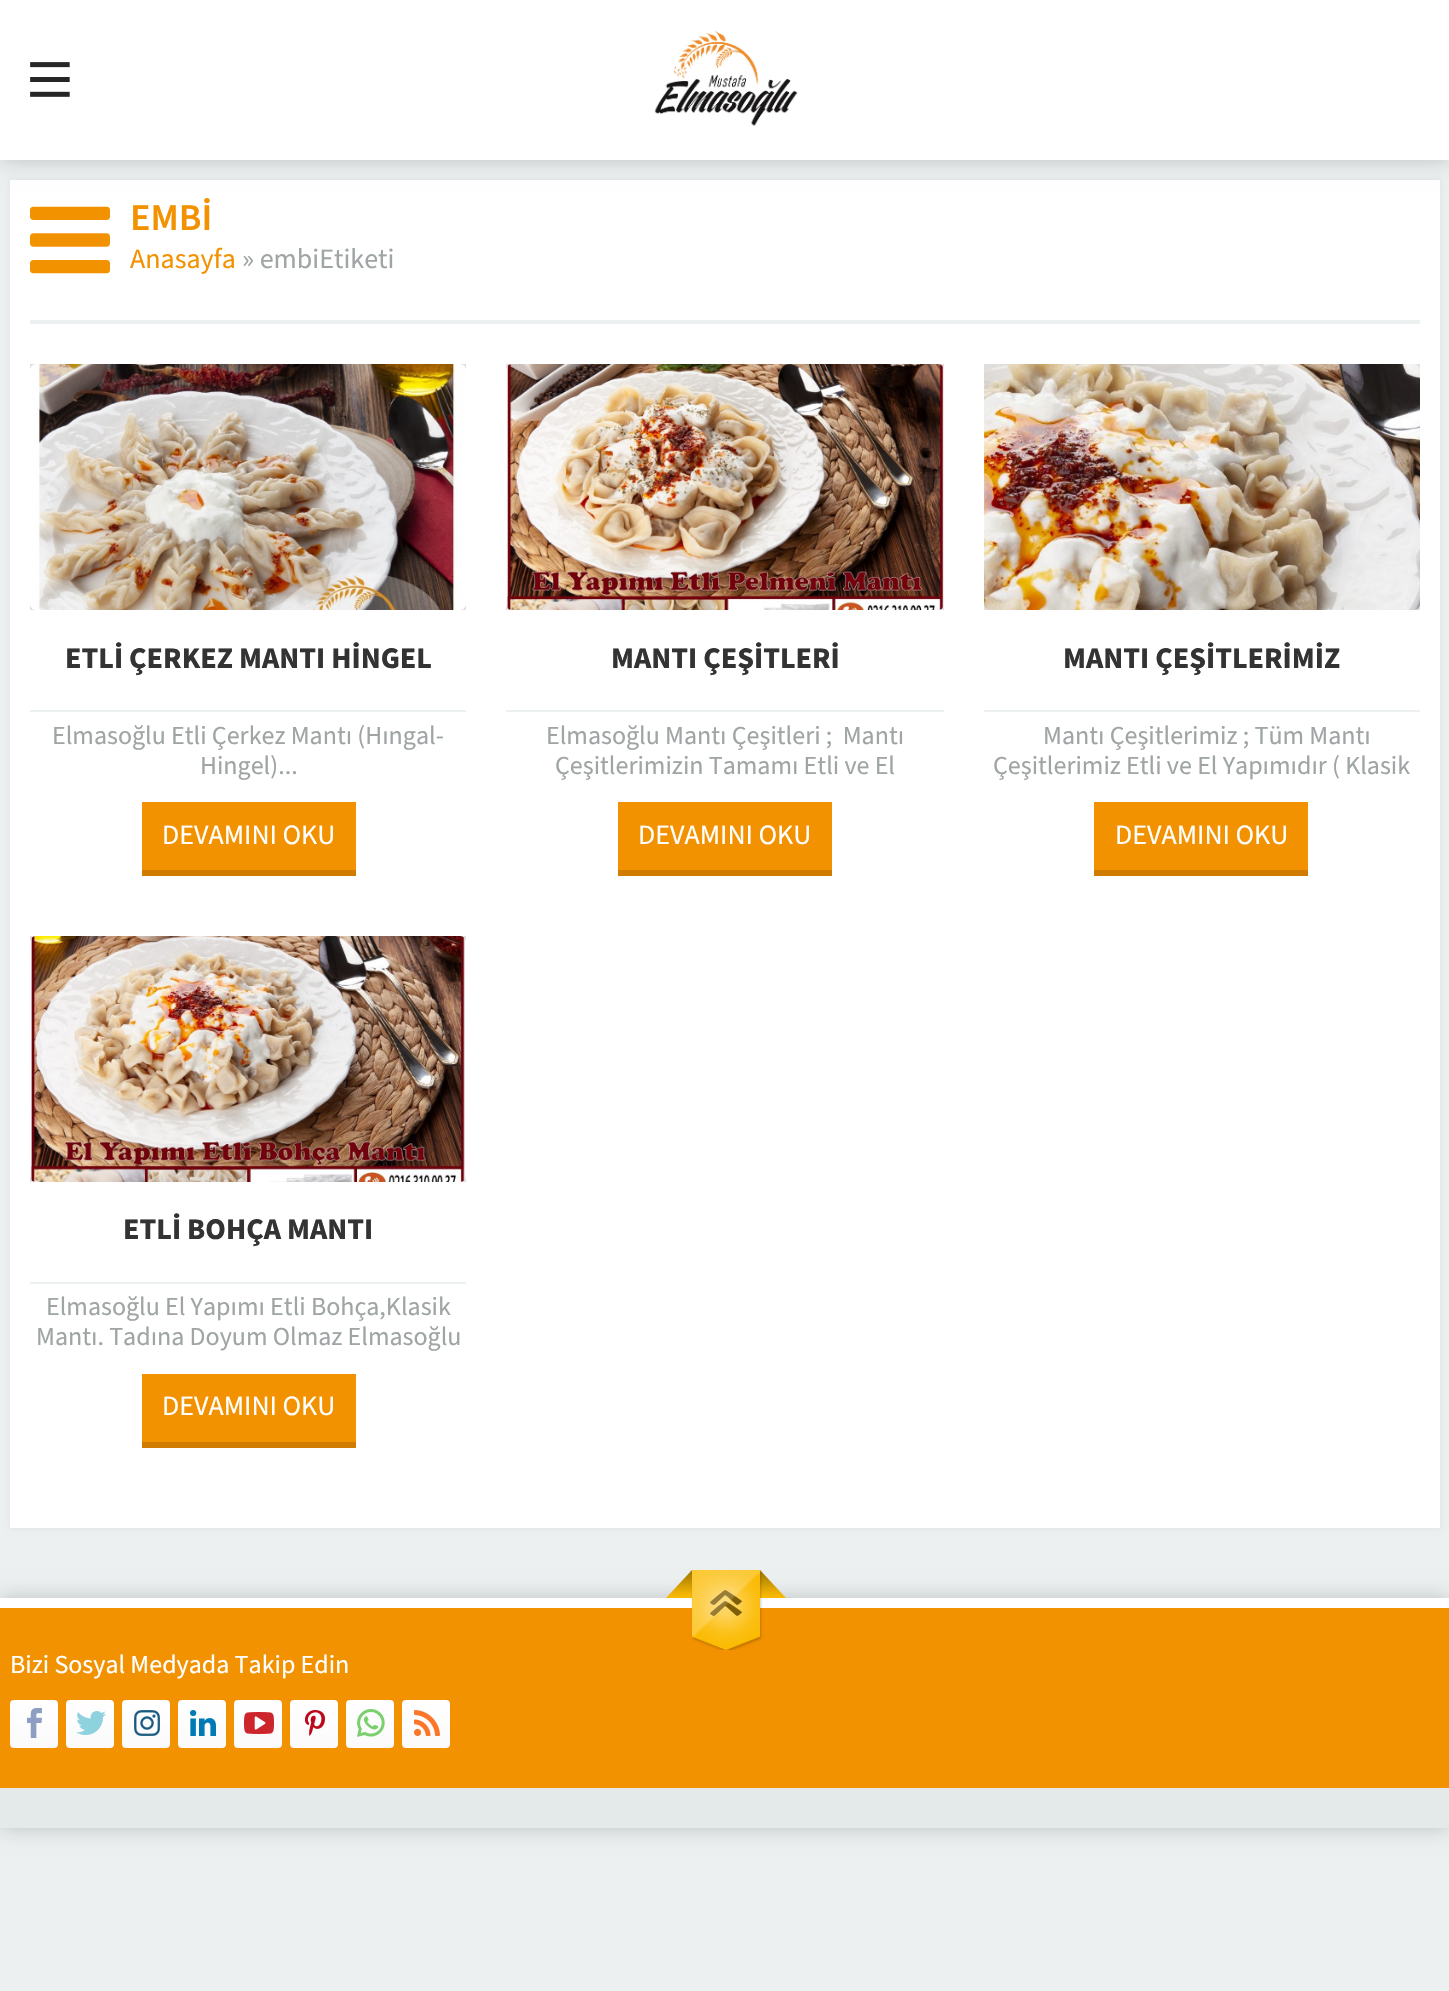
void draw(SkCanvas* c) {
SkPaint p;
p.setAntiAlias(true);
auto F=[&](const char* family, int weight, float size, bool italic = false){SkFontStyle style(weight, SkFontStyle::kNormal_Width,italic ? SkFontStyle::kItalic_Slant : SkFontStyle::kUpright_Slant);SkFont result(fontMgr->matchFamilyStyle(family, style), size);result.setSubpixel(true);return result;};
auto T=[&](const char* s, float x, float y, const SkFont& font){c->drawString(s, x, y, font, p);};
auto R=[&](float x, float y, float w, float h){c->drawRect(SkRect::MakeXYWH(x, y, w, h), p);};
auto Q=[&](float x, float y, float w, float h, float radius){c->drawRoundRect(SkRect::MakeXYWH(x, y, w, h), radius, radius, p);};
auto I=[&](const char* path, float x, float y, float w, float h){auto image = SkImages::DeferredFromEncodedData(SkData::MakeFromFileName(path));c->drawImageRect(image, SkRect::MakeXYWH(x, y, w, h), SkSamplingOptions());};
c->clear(0xffecf0f1);
p.setColor(0x0f000000);
p.setMaskFilter(SkMaskFilter::MakeBlur(kNormal_SkBlurStyle, 3));
c->drawRect(SkRect::MakeXYWH(10,180,1430,1348),p);
p.setMaskFilter(nullptr);
p.setColor(0xffffffff);
R(10,180,1430,1348);
p.setColor(0x33000000);
p.setMaskFilter(SkMaskFilter::MakeBlur(kNormal_SkBlurStyle, 10));
c->drawRect(SkRect::MakeXYWH(0,0,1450,160),p);
p.setMaskFilter(nullptr);
p.setColor(0xffffffff);
R(0,0,1449,160);
I("1.png",30,62,40,35);
I("2.png",654,30,144,96);
p.setColor(0xffecf0f1);
R(30,320,1390,4);
I("3.png",30,206,80,68);
auto f1 = F("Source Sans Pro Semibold",600,38);
p.setColor(0xfff39200);
T("EMBİ",130,230,f1);
auto f2 = F("Source Sans Pro",400,28);
T("Anasayfa",130,268,f2);
p.setColor(0xff9fa4a4);
T("» embiEtiketi",242,268,f2);
p.setColor(0xffdfdfdf);
R(30,364,436,246);
I("4.png",30,364,436,246);
auto f3 = F("Source Sans Pro",700,30);
p.setColor(0xff333333);
T("ETLİ ÇERKEZ MANTI HİNGEL",65,668,f3);
p.setColor(0xffecf0f1);
R(30,710,436,2);
auto f4 = F("Source Sans Pro",400,26);
p.setColor(0xff9fa4a4);
T("Elmasoğlu Etli Çerkez Mantı (Hıngal-",52,744,f4);
T("Hingel)...",200,774,f4);
p.setColor(0xfff39200);
R(142,802,214,68);
p.setColor(0xffcf7c00);
R(142,870,214,6);
p.setColor(0xffffffff);
T("DEVAMINI OKU",162,844,f2);
p.setColor(0xffdfdfdf);
R(506,364,438,246);
I("5.png",506,364,438,246);
p.setColor(0xff333333);
T("MANTI ÇEŞİTLERİ",611,668,f3);
p.setColor(0xffecf0f1);
R(506,710,438,2);
p.setColor(0xff9fa4a4);
T("Elmasoğlu Mantı Çeşitleri ;  Mantı",546,744,f4);
T("Çeşitlerimizin Tamamı Etli ve El",555,774,f4);
p.setColor(0xfff39200);
R(618,802,214,68);
p.setColor(0xffcf7c00);
R(618,870,214,6);
p.setColor(0xffffffff);
T("DEVAMINI OKU",638,844,f2);
p.setColor(0xffdfdfdf);
R(984,364,436,246);
I("6.png",984,364,436,246);
p.setColor(0xff333333);
T("MANTI ÇEŞİTLERİMİZ",1063,668,f3);
p.setColor(0xffecf0f1);
R(984,710,436,2);
p.setColor(0xff9fa4a4);
T("Mantı Çeşitlerimiz ; Tüm Mantı",1043,744,f4);
T("Çeşitlerimiz Etli ve El Yapımıdır ( Klasik",993,774,f4);
p.setColor(0xfff39200);
R(1094,802,214,68);
p.setColor(0xffcf7c00);
R(1094,870,214,6);
p.setColor(0xffffffff);
T("DEVAMINI OKU",1115,844,f2);
p.setColor(0xffdfdfdf);
R(30,936,436,246);
I("7.png",30,936,436,246);
p.setColor(0xff333333);
T("ETLİ BOHÇA MANTI",123,1239,f3);
p.setColor(0xffecf0f1);
R(30,1282,436,2);
p.setColor(0xff9fa4a4);
T("Elmasoğlu El Yapımı Etli Bohça,Klasik",46,1315,f4);
T("Mantı. Tadına Doyum Olmaz Elmasoğlu",36,1345,f4);
p.setColor(0xfff39200);
R(142,1374,214,68);
p.setColor(0xffcf7c00);
R(142,1442,214,6);
p.setColor(0xffffffff);
T("DEVAMINI OKU",162,1415,f2);
p.setColor(0x33000000);
p.setMaskFilter(SkMaskFilter::MakeBlur(kNormal_SkBlurStyle, 10));
c->drawRect(SkRect::MakeXYWH(0,1598,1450,230),p);
p.setMaskFilter(nullptr);
p.setColor(0xfff39200);
R(0,1608,1449,180);
p.setColor(0xffffffff);
R(0,1598,1449,10);
I("8.png",666,1570,120,80);
T("Bizi Sosyal Medyada Takip Edin",10,1673,f4);
{
const SkColor colors[] = {0xfffafafa,0xffffffff};
const float stops[] = {0,1};
const SkPoint ends[] = {{34,1748}, {34,1700}};
p.setShader(SkGradientShader::MakeLinear(ends, colors, stops, 2, SkTileMode::kClamp));
p.setAlpha(255);
}
Q(10,1700,48,48,4);
I("9.png",27,1708,15,30);
{
const SkColor colors[] = {0xfffafafa,0xffffffff};
const float stops[] = {0,1};
const SkPoint ends[] = {{90,1748}, {90,1700}};
p.setShader(SkGradientShader::MakeLinear(ends, colors, stops, 2, SkTileMode::kClamp));
p.setAlpha(255);
}
Q(66,1700,48,48,4);
I("10.png",76,1711,30,24);
{
const SkColor colors[] = {0xfffafafa,0xffffffff};
const float stops[] = {0,1};
const SkPoint ends[] = {{146,1748}, {146,1700}};
p.setShader(SkGradientShader::MakeLinear(ends, colors, stops, 2, SkTileMode::kClamp));
p.setAlpha(255);
}
Q(122,1700,48,48,4);
I("11.png",134,1710,26,26);
{
const SkColor colors[] = {0xfffafafa,0xffffffff};
const float stops[] = {0,1};
const SkPoint ends[] = {{202,1748}, {202,1700}};
p.setShader(SkGradientShader::MakeLinear(ends, colors, stops, 2, SkTileMode::kClamp));
p.setAlpha(255);
}
Q(178,1700,48,48,4);
I("12.png",190,1710,26,26);
{
const SkColor colors[] = {0xfffafafa,0xffffffff};
const float stops[] = {0,1};
const SkPoint ends[] = {{258,1748}, {258,1700}};
p.setShader(SkGradientShader::MakeLinear(ends, colors, stops, 2, SkTileMode::kClamp));
p.setAlpha(255);
}
Q(234,1700,48,48,4);
I("13.png",244,1712,30,22);
{
const SkColor colors[] = {0xfffafafa,0xffffffff};
const float stops[] = {0,1};
const SkPoint ends[] = {{314,1748}, {314,1700}};
p.setShader(SkGradientShader::MakeLinear(ends, colors, stops, 2, SkTileMode::kClamp));
p.setAlpha(255);
}
Q(290,1700,48,48,4);
I("14.png",305,1710,20,26);
{
const SkColor colors[] = {0xfffafafa,0xffffffff};
const float stops[] = {0,1};
const SkPoint ends[] = {{370,1748}, {370,1700}};
p.setShader(SkGradientShader::MakeLinear(ends, colors, stops, 2, SkTileMode::kClamp));
p.setAlpha(255);
}
Q(346,1700,48,48,4);
I("15.png",357,1709,28,28);
{
const SkColor colors[] = {0xfffafafa,0xffffffff};
const float stops[] = {0,1};
const SkPoint ends[] = {{426,1748}, {426,1700}};
p.setShader(SkGradientShader::MakeLinear(ends, colors, stops, 2, SkTileMode::kClamp));
p.setAlpha(255);
}
Q(402,1700,48,48,4);
I("16.png",414,1710,26,26);
p.setShader(nullptr);
p.setColor(0xffe4e9e9);
R(0,1788,1449,40);
}
